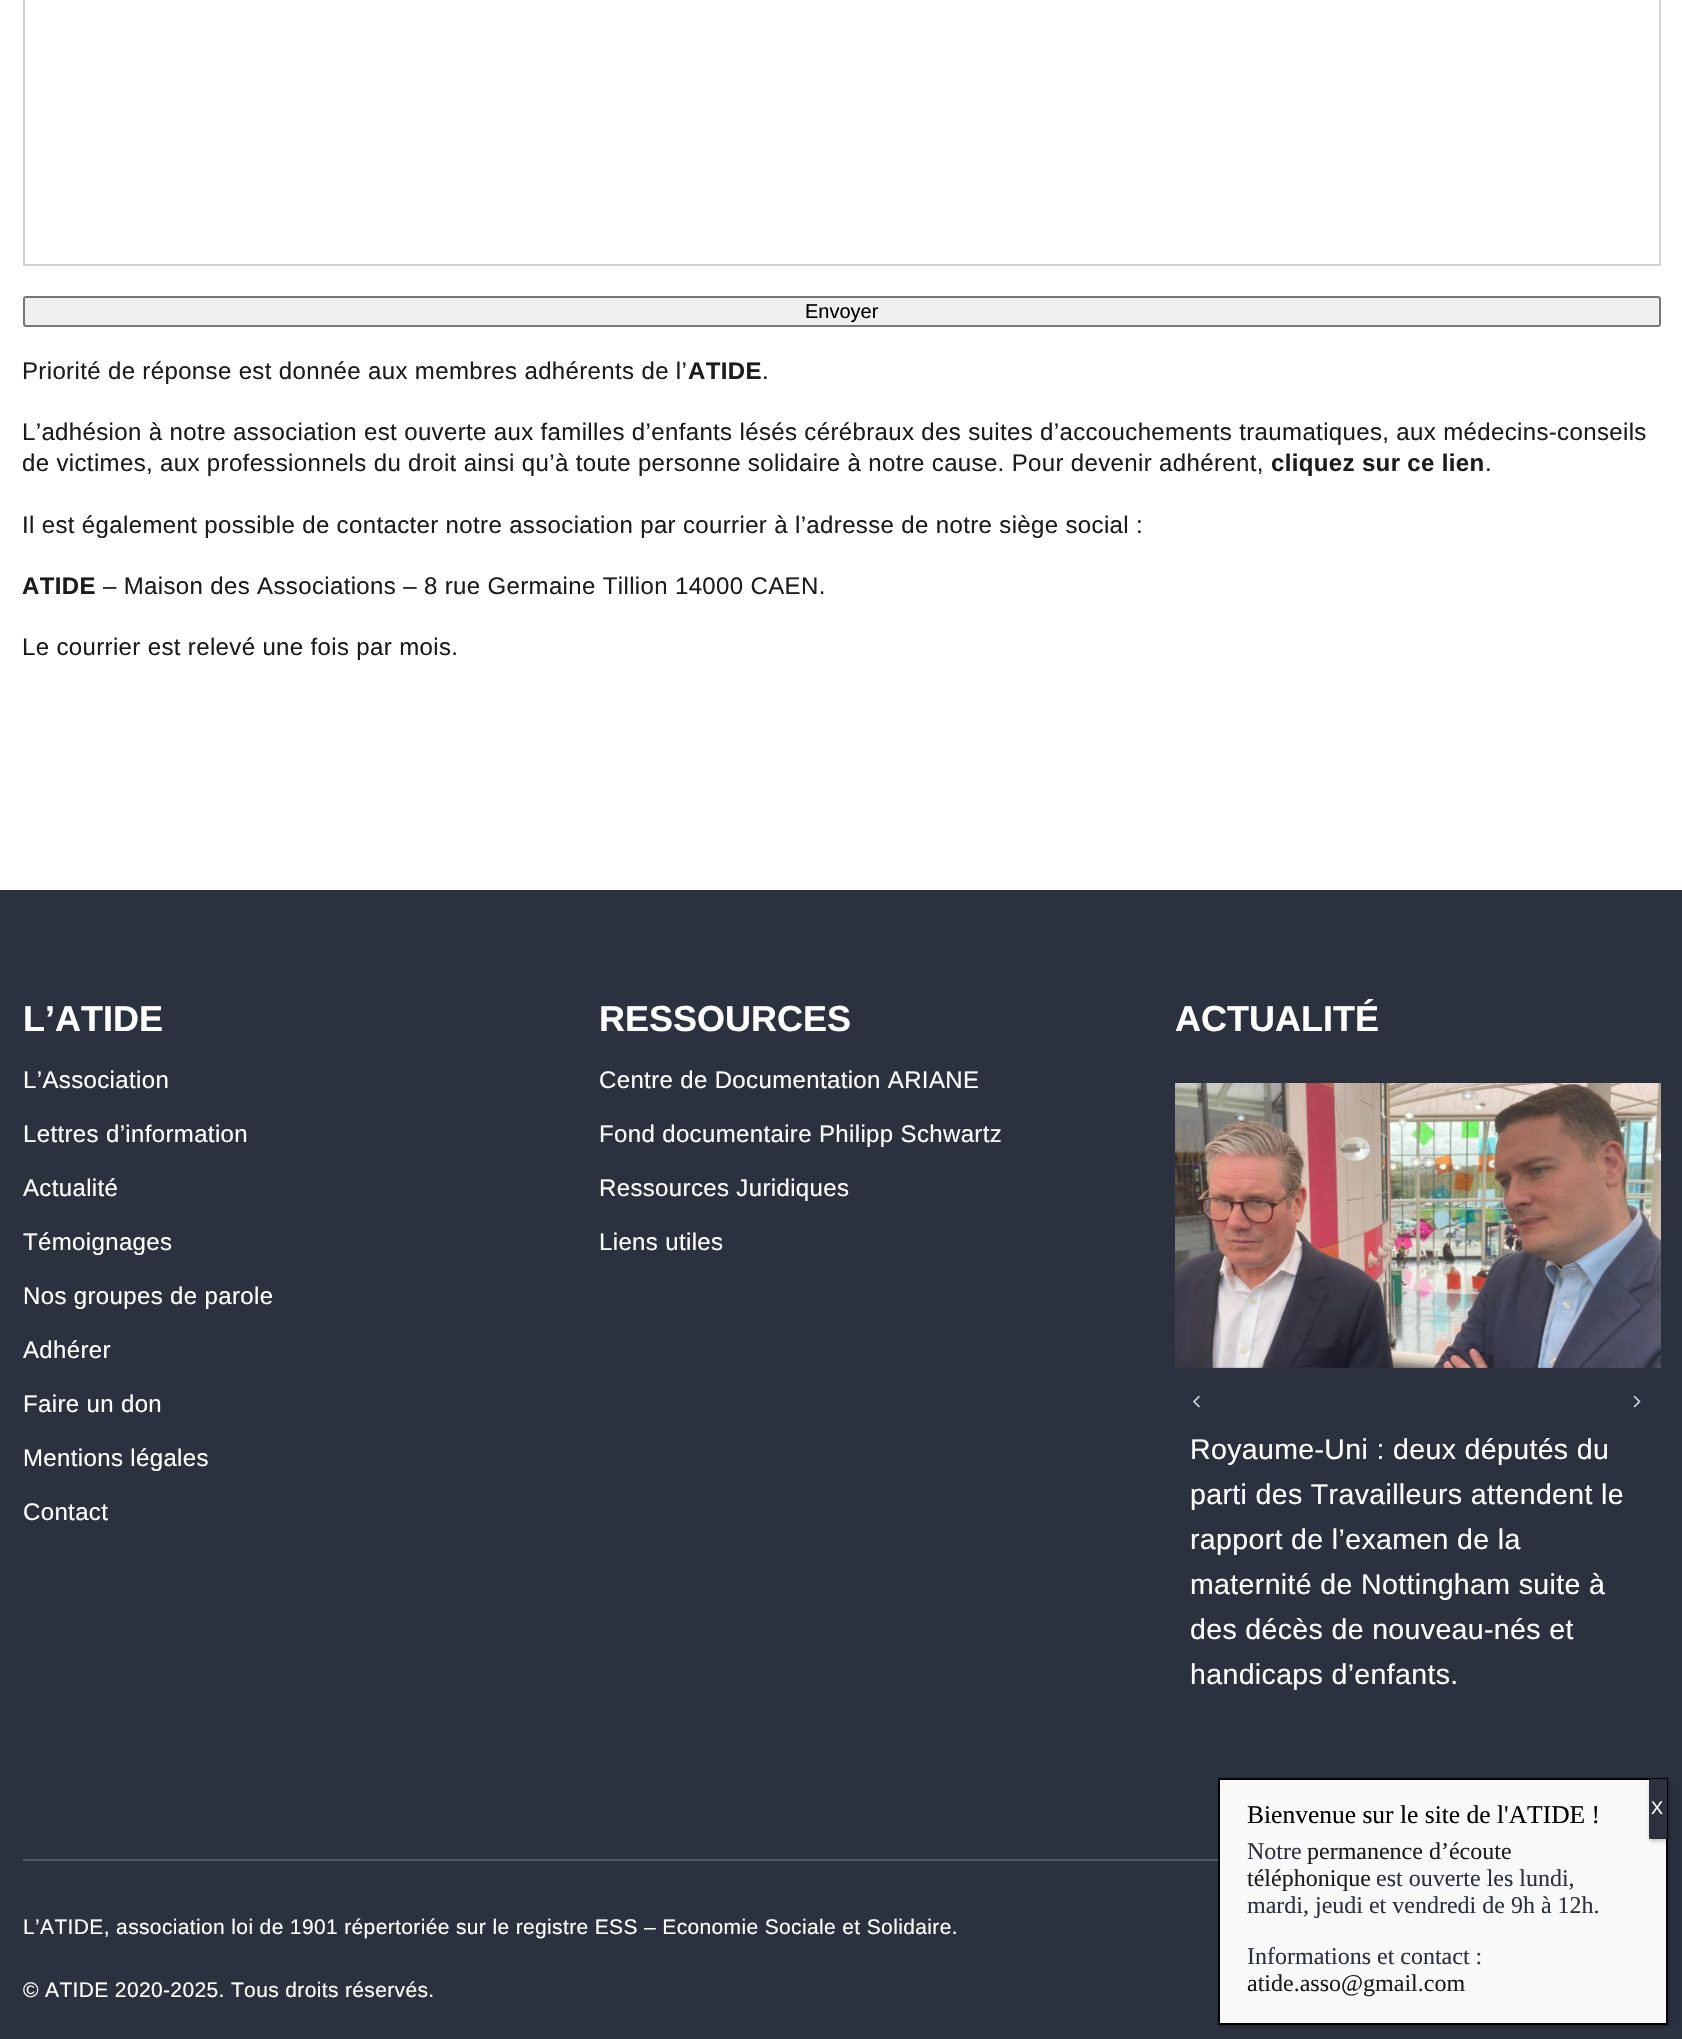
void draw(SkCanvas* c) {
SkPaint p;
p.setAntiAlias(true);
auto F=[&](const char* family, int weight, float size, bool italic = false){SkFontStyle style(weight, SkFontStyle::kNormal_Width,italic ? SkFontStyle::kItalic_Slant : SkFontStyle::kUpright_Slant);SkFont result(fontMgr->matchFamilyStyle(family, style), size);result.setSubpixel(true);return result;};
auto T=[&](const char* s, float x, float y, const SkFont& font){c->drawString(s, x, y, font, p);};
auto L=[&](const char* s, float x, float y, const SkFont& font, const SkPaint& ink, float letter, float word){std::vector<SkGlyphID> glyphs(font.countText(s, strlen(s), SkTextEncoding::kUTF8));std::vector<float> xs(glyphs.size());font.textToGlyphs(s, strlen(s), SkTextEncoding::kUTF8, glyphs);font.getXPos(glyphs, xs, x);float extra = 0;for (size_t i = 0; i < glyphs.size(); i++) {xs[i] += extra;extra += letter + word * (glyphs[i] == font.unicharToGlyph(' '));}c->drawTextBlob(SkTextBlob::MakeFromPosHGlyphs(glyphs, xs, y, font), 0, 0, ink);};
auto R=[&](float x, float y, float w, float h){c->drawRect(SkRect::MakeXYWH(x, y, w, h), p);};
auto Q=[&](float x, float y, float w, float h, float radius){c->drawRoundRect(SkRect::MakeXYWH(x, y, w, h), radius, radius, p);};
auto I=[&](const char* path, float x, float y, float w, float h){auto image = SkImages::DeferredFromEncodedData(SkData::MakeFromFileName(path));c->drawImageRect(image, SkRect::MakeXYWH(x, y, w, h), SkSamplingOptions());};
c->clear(0xffffffff);
p.setStroke(true);
p.setStrokeWidth(2);
p.setColor(0xffd2d2d2);
c->drawRect(SkRect::MakeXYWH(24,-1,1636,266),p);
p.setStroke(false);
p.setColor(0xffefefef);
c->drawRoundRect(SkRect::MakeXYWH(24,297,1636,29),2,2,p);
p.setStroke(true);
p.setColor(0xff767676);
c->drawRoundRect(SkRect::MakeXYWH(24,297,1636,29),2,2,p);
auto f1 = F("Liberation Sans",400,20);
p.setStroke(false);
p.setColor(0xff000000);
T("Envoyer",805,318,f1);
auto f2 = F("Liberation Sans",400,24);
p.setColor(0xff1c1c1c);
L("Priorité de réponse est donnée aux membres adhérents de l’",22,379,f2,p,.36,0);
auto f3 = F("Liberation Sans",700,24);
L("ATIDE",688,379,f3,p,.36,0);
L(".",762,379,f2,p,.36,0);
L("L’adhésion à notre association est ouverte aux familles d’enfants lésés cérébraux des suites d’accouchements traumatiques, aux médecins-conseils",22,440,f2,p,.36,0);
L("de victimes, aux professionnels du droit ainsi qu’à toute personne solidaire à notre cause. Pour devenir adhérent,",22,471,f2,p,.36,0);
L("cliquez sur ce lien",1271,471,f3,p,.36,0);
L(".",1485,471,f2,p,.36,0);
L("Il est également possible de contacter notre association par courrier à l’adresse de notre siège social :",22,533,f2,p,.36,0);
L("ATIDE",22,594,f3,p,.36,0);
L("– Maison des Associations – 8 rue Germaine Tillion 14000 CAEN.",103,594,f2,p,.36,0);
L("Le courrier est relevé une fois par mois.",22,655,f2,p,.36,0);
p.setColor(0xff2c313f);
R(0,890,1682,1149);
auto f4 = F("Liberation Sans",700,36);
p.setColor(0xffffffff);
T("L’ATIDE",23,1031,f4);
L("L’Association",23,1088,f2,p,.36,0);
L("Lettres d’information",23,1142,f2,p,.36,0);
L("Actualité",23,1196,f2,p,.36,0);
L("Témoignages",23,1250,f2,p,.36,0);
L("Nos groupes de parole",23,1304,f2,p,.36,0);
L("Adhérer",23,1358,f2,p,.36,0);
L("Faire un don",23,1412,f2,p,.36,0);
L("Mentions légales",23,1466,f2,p,.36,0);
L("Contact",23,1520,f2,p,.36,0);
T("RESSOURCES",599,1031,f4);
L("Centre de Documentation ARIANE",599,1088,f2,p,.36,0);
L("Fond documentaire Philipp Schwartz",599,1142,f2,p,.36,0);
L("Ressources Juridiques",599,1196,f2,p,.36,0);
L("Liens utiles",599,1250,f2,p,.36,0);
T("ACTUALITÉ",1175,1031,f4);
I("1.png",1193,1395,7,13);
I("2.png",1633,1395,8,13);
I("3.png",1175,1083,486,285);
auto f5 = F("Liberation Sans",400,28.5);
L("Royaume-Uni : deux députés du",1190,1459,f5,p,.36,0);
L("parti des Travailleurs attendent le",1190,1504,f5,p,.36,0);
L("rapport de l’examen de la",1190,1549,f5,p,.36,0);
L("maternité de Nottingham suite à",1190,1594,f5,p,.36,0);
L("des décès de nouveau-nés et",1190,1639,f5,p,.36,0);
L("handicaps d’enfants.",1190,1684,f5,p,.36,0);
p.setColor(0xff565a65);
R(23,1859,1195,2);
auto f6 = F("Liberation Sans",400,21);
p.setColor(0xffffffff);
L("L’ATIDE, association loi de 1901 répertoriée sur le registre ESS – Economie Sociale et Solidaire.",23,1934,f6,p,.36,0);
L("© ATIDE 2020-2025. Tous droits réservés.",23,1997,f6,p,.36,0);
p.setColor(0x3b020202);
p.setMaskFilter(SkMaskFilter::MakeBlur(kNormal_SkBlurStyle, 2));
c->drawRect(SkRect::MakeXYWH(1220,1779,450,248),p);
p.setMaskFilter(nullptr);
p.setColor(0xfff9f9f9);
c->drawRect(SkRect::MakeXYWH(1219,1779,448,245),p);
p.setStroke(true);
p.setColor(0xff000000);
c->drawRect(SkRect::MakeXYWH(1219,1779,448,245),p);
auto f7 = F("Liberation Serif",400,25.5);
p.setStroke(false);
T("Bienvenue sur le site de l'ATIDE !",1247,1823,f7);
p.setColor(0x3b020202);
p.setMaskFilter(SkMaskFilter::MakeBlur(kNormal_SkBlurStyle, 2));
c->drawRoundRect(SkRect::MakeXYWH(1650,1781,18,60),1.5,1.5,p);
p.setMaskFilter(nullptr);
p.setColor(0xff2c313f);
Q(1649,1779,18,60,1.5);
auto f8 = F("Liberation Sans",400,18);
p.setColor(0xffffffff);
T("X",1651,1814,f8);
auto f9 = F("Liberation Serif",400,24);
p.setColor(0xff2c313f);
T("Notre",1247,1859,f9);
p.setColor(0xff1c1c1c);
T("permanence d’écoute",1307,1859,f9);
T("téléphonique",1247,1886,f9);
p.setColor(0xff2c313f);
T("est ouverte les lundi,",1376,1886,f9);
T("mardi, jeudi et vendredi de 9h à 12h.",1247,1913,f9);
T("Informations et contact :",1247,1964,f9);
p.setColor(0xff1c1c1c);
T("atide.asso@gmail.com",1247,1991,f9);
}
